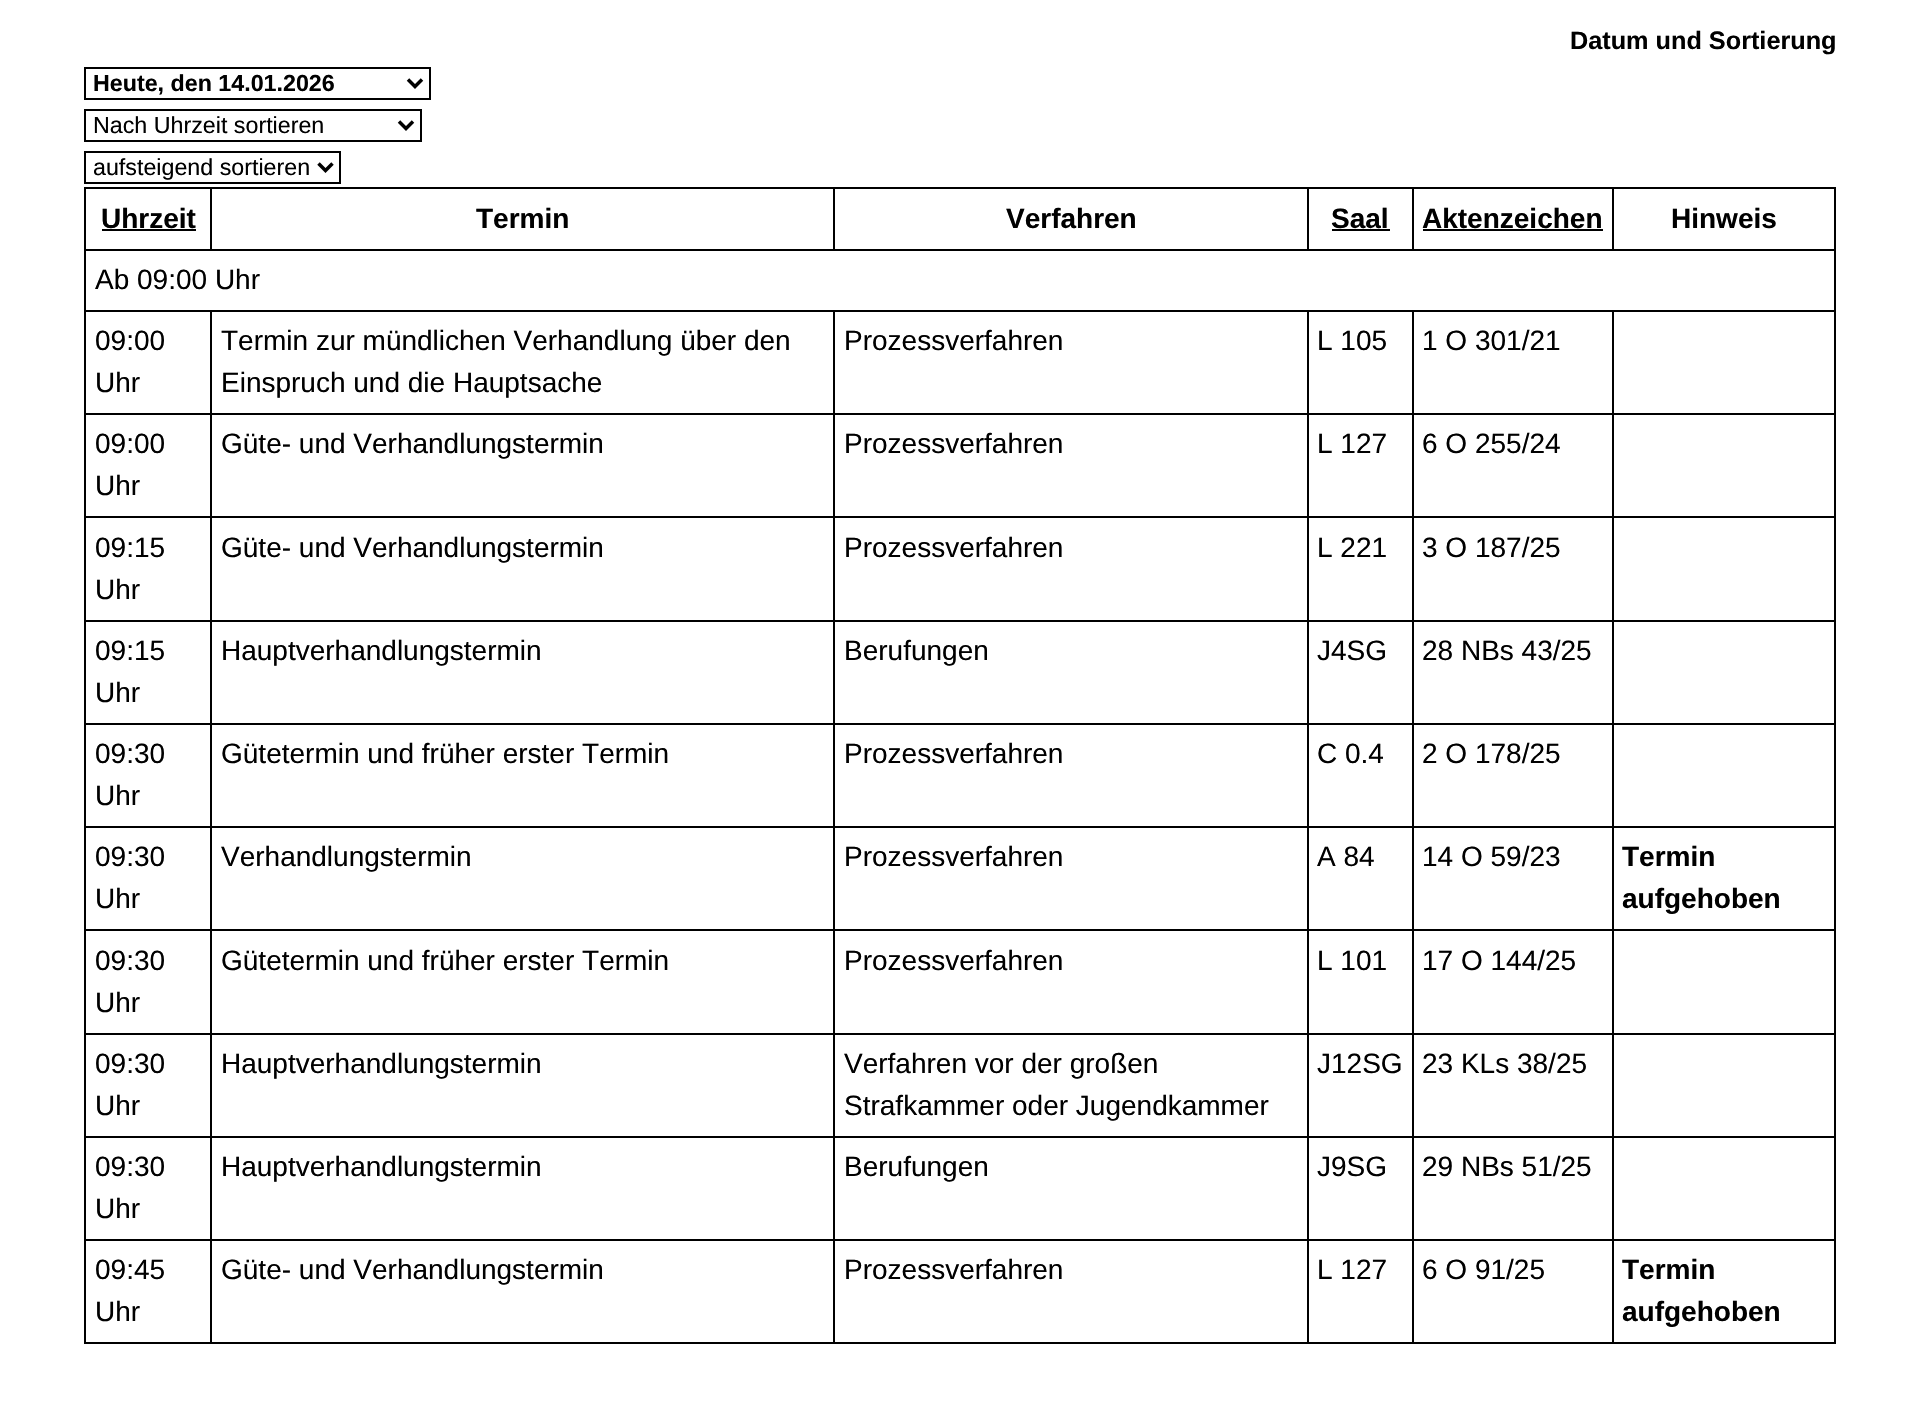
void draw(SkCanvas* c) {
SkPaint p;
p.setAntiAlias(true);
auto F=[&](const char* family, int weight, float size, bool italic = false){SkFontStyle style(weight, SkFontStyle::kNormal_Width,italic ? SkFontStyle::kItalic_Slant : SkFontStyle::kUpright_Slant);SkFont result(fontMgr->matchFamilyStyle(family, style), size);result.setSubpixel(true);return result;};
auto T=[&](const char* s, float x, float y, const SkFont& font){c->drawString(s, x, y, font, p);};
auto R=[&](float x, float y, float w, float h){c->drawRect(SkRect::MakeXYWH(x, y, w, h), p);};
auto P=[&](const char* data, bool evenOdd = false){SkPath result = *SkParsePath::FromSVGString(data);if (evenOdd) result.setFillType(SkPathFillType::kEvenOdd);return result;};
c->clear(0xffffffff);
auto f1 = F("Liberation Sans",700,25.25);
p.setColor(0xff000000);
T("Datum und Sortierung",1570,49,f1);
p.setStroke(true);
p.setStrokeWidth(2);
c->drawRect(SkRect::MakeXYWH(85,68,345,31),p);
p.setStrokeWidth(3.5);
c->drawPath(P("M408 79.5l7 7l7-7"),p);
auto f2 = F("Liberation Sans",700,23.25);
p.setStroke(false);
T("Heute, den 14.01.2026",93,91,f2);
p.setStroke(true);
p.setStrokeWidth(2);
c->drawRect(SkRect::MakeXYWH(85,110,336,31),p);
p.setStrokeWidth(3.5);
c->drawPath(P("M399 121.5l7 7l7-7"),p);
auto f3 = F("Liberation Sans",400,23.25);
p.setStroke(false);
T("Nach Uhrzeit sortieren",93,133,f3);
p.setStroke(true);
p.setStrokeWidth(2);
c->drawRect(SkRect::MakeXYWH(85,152,255,31),p);
p.setStrokeWidth(3.5);
c->drawPath(P("M318.5 163.5l7 7l7-7"),p);
p.setStroke(false);
T("aufsteigend sortieren",93,175,f3);
R(84,187,1752,2);
R(1834,187,2,1157);
R(84,1342,1752,2);
R(84,187,2,1157);
auto f4 = F("Liberation Sans",700,28);
T("Uhrzeit",101,228,f4);
R(102,229,94,2);
R(84,249,1752,2);
R(210,187,2,63);
T("Termin",476,228,f4);
R(833,187,2,63);
T("Verfahren",1006,228,f4);
R(1307,187,2,63);
T("Saal",1331,228,f4);
R(1332,229,58,2);
R(1412,187,2,63);
T("Aktenzeichen",1422,228,f4);
R(1423,229,180,2);
R(1612,187,2,63);
T("Hinweis",1671,228,f4);
auto f5 = F("Liberation Sans",400,28);
T("Ab 09:00 Uhr",95,289,f5);
R(1612,310,224,2);
R(1612,413,224,2);
R(1612,516,224,2);
R(1612,620,224,2);
R(1612,723,224,2);
R(1612,826,224,2);
R(1612,929,224,2);
R(1612,1033,224,2);
R(1612,1136,224,2);
R(1612,1239,224,2);
R(1612,1239,2,105);
R(1412,1239,202,2);
R(1612,1136,2,105);
R(1412,1136,202,2);
R(1612,1033,2,105);
R(1412,1033,202,2);
R(1612,929,2,105);
R(1412,929,202,2);
R(1612,826,2,105);
R(1412,826,202,2);
R(1612,723,2,105);
R(1412,723,202,2);
R(1612,620,2,105);
R(1412,620,202,2);
R(1612,516,2,105);
R(1412,516,202,2);
R(1612,413,2,105);
R(1412,413,202,2);
R(1612,310,2,105);
R(1412,310,202,2);
R(1412,1239,2,105);
R(1307,1239,107,2);
R(1412,1136,2,105);
R(1307,1136,107,2);
R(1412,1033,2,105);
R(1307,1033,107,2);
R(1412,929,2,105);
R(1307,929,107,2);
R(1412,826,2,105);
R(1307,826,107,2);
R(1412,723,2,105);
R(1307,723,107,2);
R(1412,620,2,105);
R(1307,620,107,2);
R(1412,516,2,105);
R(1307,516,107,2);
R(1412,413,2,105);
R(1307,413,107,2);
R(1412,310,2,105);
R(1307,310,107,2);
R(1307,1239,2,105);
R(833,1239,476,2);
R(1307,1136,2,105);
R(833,1136,476,2);
R(1307,1033,2,105);
R(833,1033,476,2);
R(1307,929,2,105);
R(833,929,476,2);
R(1307,826,2,105);
R(833,826,476,2);
R(1307,723,2,105);
R(833,723,476,2);
R(1307,620,2,105);
R(833,620,476,2);
R(1307,516,2,105);
R(833,516,476,2);
R(1307,413,2,105);
R(833,413,476,2);
R(1307,310,2,105);
R(833,310,476,2);
R(833,1239,2,105);
R(210,1239,625,2);
R(833,1136,2,105);
R(210,1136,625,2);
R(833,1033,2,105);
R(210,1033,625,2);
R(833,929,2,105);
R(210,929,625,2);
R(833,826,2,105);
R(210,826,625,2);
R(833,723,2,105);
R(210,723,625,2);
R(833,620,2,105);
R(210,620,625,2);
R(833,516,2,105);
R(210,516,625,2);
R(833,413,2,105);
R(210,413,625,2);
R(833,310,2,105);
R(210,310,625,2);
R(210,1239,2,105);
R(84,1239,128,2);
R(210,1136,2,105);
R(84,1136,128,2);
R(210,1033,2,105);
R(84,1033,128,2);
R(210,929,2,105);
R(84,929,128,2);
R(210,826,2,105);
R(84,826,128,2);
R(210,723,2,105);
R(84,723,128,2);
R(210,620,2,105);
R(84,620,128,2);
R(210,516,2,105);
R(84,516,128,2);
R(210,413,2,105);
R(84,413,128,2);
R(210,310,2,105);
R(84,310,128,2);
T("09:00",95,350,f5);
T("Uhr",95,392,f5);
T("Termin zur mündlichen Verhandlung über den",221,350,f5);
T("Einspruch und die Hauptsache",221,392,f5);
T("Prozessverfahren",844,350,f5);
T("L 105",1317,350,f5);
T("1 O 301/21",1422,350,f5);
T("09:00",95,453,f5);
T("Uhr",95,495,f5);
T("Güte- und Verhandlungstermin",221,453,f5);
T("Prozessverfahren",844,453,f5);
T("L 127",1317,453,f5);
T("6 O 255/24",1422,453,f5);
T("09:15",95,557,f5);
T("Uhr",95,599,f5);
T("Güte- und Verhandlungstermin",221,557,f5);
T("Prozessverfahren",844,557,f5);
T("L 221",1317,557,f5);
T("3 O 187/25",1422,557,f5);
T("09:15",95,660,f5);
T("Uhr",95,702,f5);
T("Hauptverhandlungstermin",221,660,f5);
T("Berufungen",844,660,f5);
T("J4SG",1317,660,f5);
T("28 NBs 43/25",1422,660,f5);
T("09:30",95,763,f5);
T("Uhr",95,805,f5);
T("Gütetermin und früher erster Termin",221,763,f5);
T("Prozessverfahren",844,763,f5);
T("C 0.4",1317,763,f5);
T("2 O 178/25",1422,763,f5);
T("09:30",95,866,f5);
T("Uhr",95,908,f5);
T("Verhandlungstermin",221,866,f5);
T("Prozessverfahren",844,866,f5);
T("A 84",1317,866,f5);
T("14 O 59/23",1422,866,f5);
T("Termin",1622,866,f4);
T("aufgehoben",1622,908,f4);
T("09:30",95,970,f5);
T("Uhr",95,1012,f5);
T("Gütetermin und früher erster Termin",221,970,f5);
T("Prozessverfahren",844,970,f5);
T("L 101",1317,970,f5);
T("17 O 144/25",1422,970,f5);
T("09:30",95,1073,f5);
T("Uhr",95,1115,f5);
T("Hauptverhandlungstermin",221,1073,f5);
T("Verfahren vor der großen",844,1073,f5);
T("Strafkammer oder Jugendkammer",844,1115,f5);
T("J12SG",1317,1073,f5);
T("23 KLs 38/25",1422,1073,f5);
T("09:30",95,1176,f5);
T("Uhr",95,1218,f5);
T("Hauptverhandlungstermin",221,1176,f5);
T("Berufungen",844,1176,f5);
T("J9SG",1317,1176,f5);
T("29 NBs 51/25",1422,1176,f5);
T("09:45",95,1279,f5);
T("Uhr",95,1321,f5);
T("Güte- und Verhandlungstermin",221,1279,f5);
T("Prozessverfahren",844,1279,f5);
T("L 127",1317,1279,f5);
T("6 O 91/25",1422,1279,f5);
T("Termin",1622,1279,f4);
T("aufgehoben",1622,1321,f4);
}
